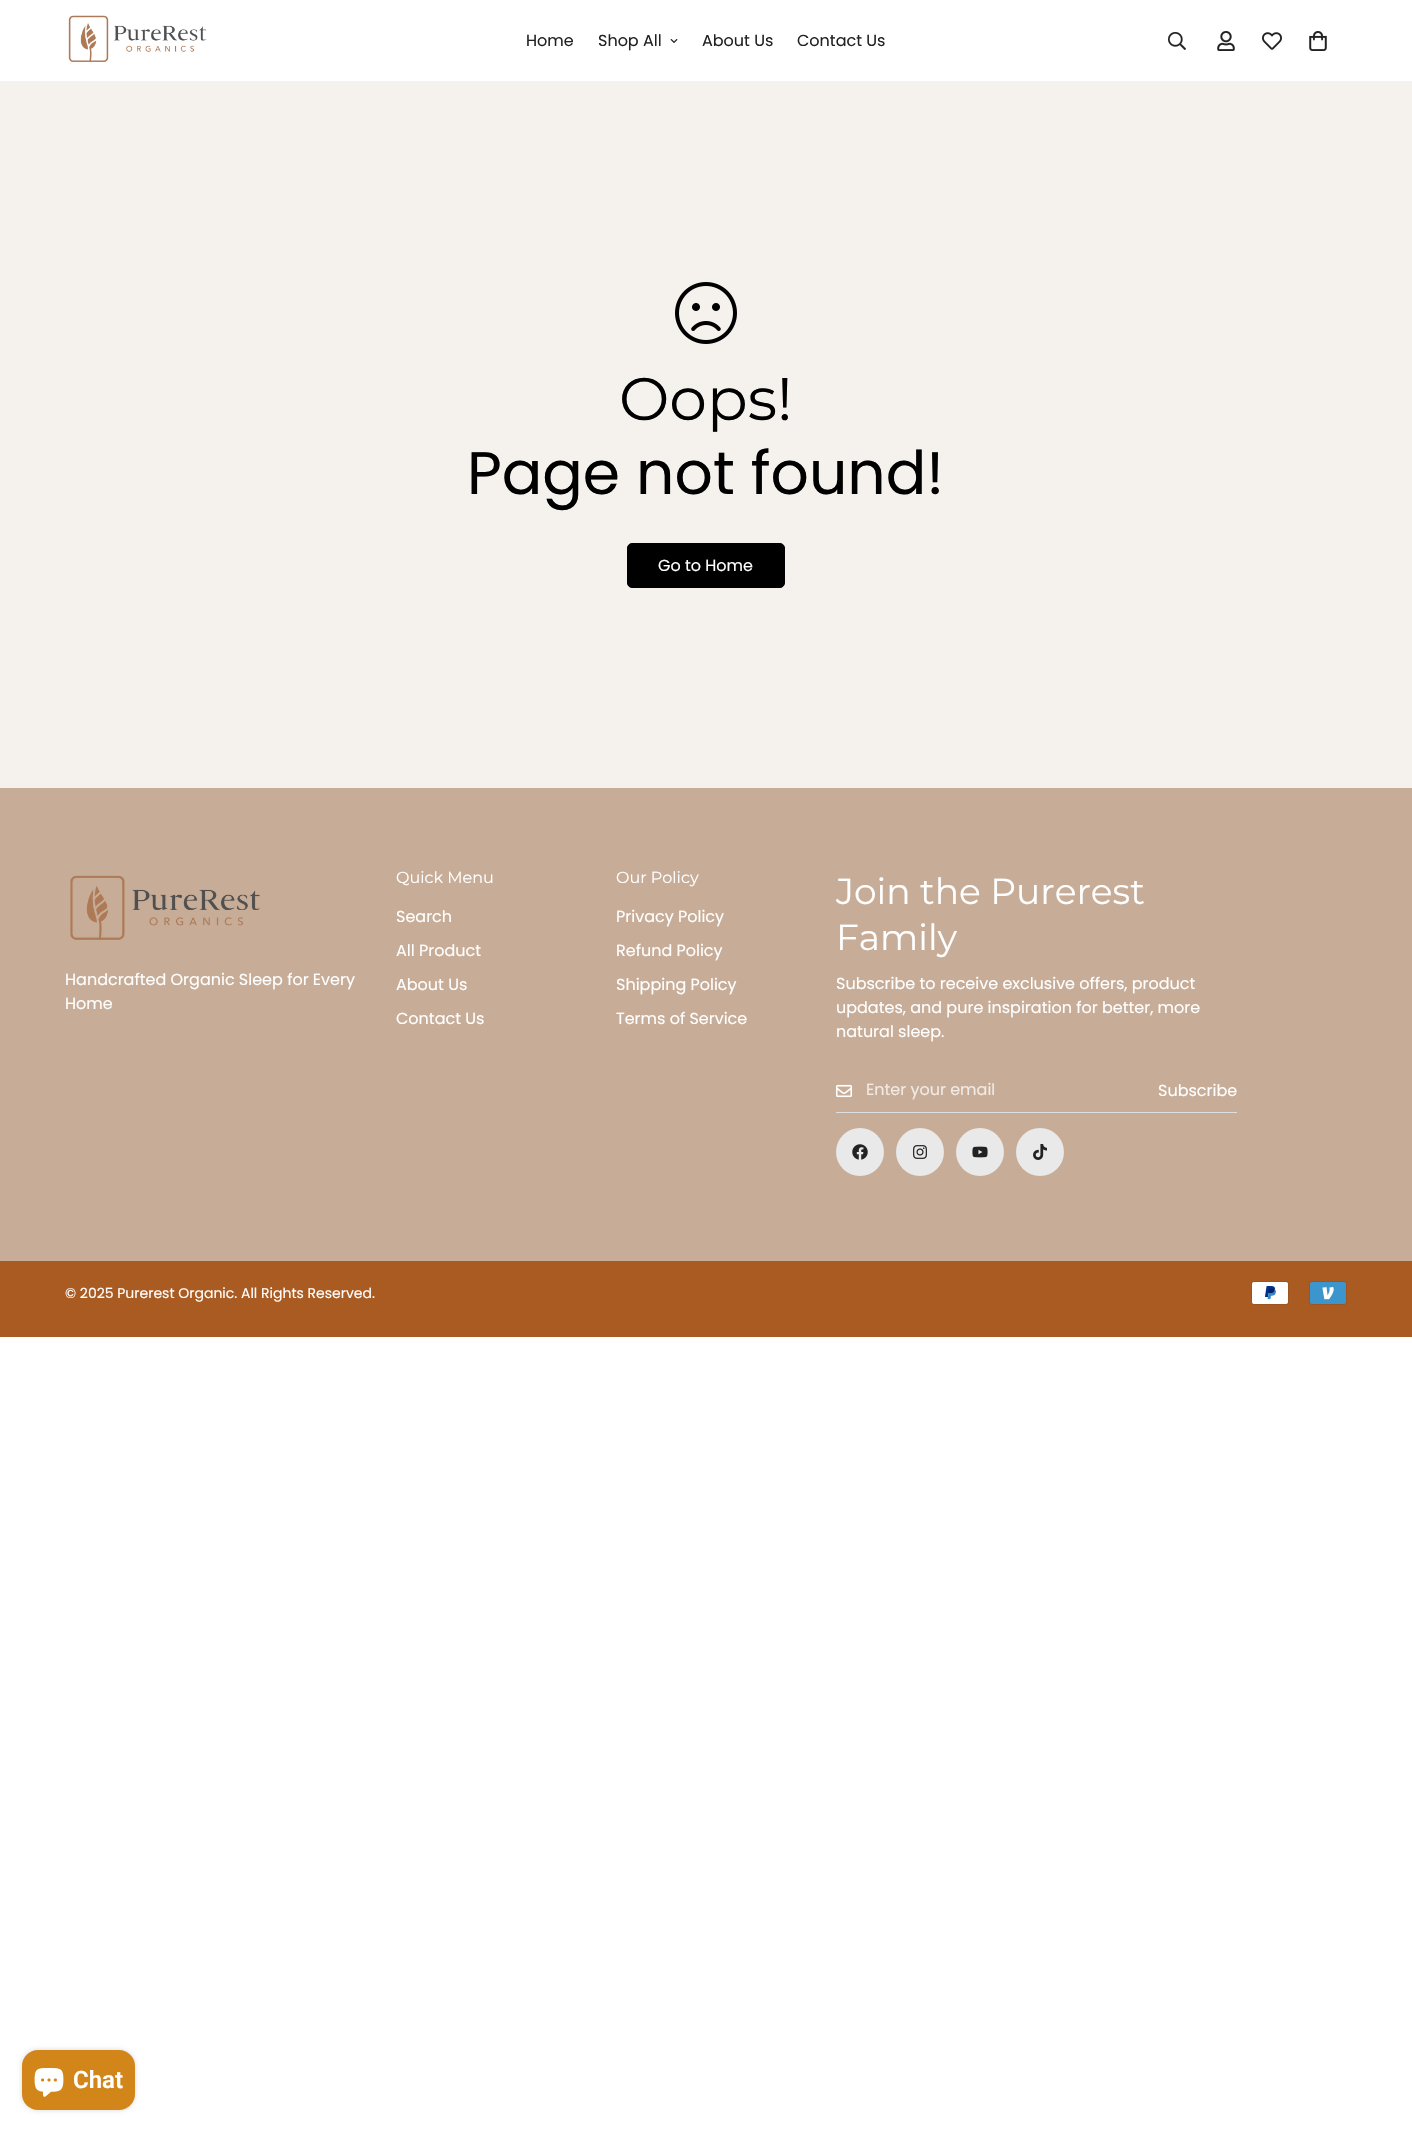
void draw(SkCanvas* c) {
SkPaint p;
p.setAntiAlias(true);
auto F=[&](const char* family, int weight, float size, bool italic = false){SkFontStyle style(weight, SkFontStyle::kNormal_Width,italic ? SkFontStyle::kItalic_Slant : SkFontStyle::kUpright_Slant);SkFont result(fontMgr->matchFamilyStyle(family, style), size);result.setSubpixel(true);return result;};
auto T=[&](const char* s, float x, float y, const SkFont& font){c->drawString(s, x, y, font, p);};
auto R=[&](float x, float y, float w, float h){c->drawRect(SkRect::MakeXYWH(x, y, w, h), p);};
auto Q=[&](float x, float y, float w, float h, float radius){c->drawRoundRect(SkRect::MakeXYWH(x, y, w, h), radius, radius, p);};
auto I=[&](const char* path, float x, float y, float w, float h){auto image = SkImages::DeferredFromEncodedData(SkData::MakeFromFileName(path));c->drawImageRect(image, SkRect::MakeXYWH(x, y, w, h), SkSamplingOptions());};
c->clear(0xffffffff);
I("1.png",68,15,139,47);
auto f1 = F("Poppins",400,16);
p.setColor(0xff222222);
T("Home",526,46,f1);
T("Shop All",598,46,f1);
I("2.png",670,39,8,4);
T("About Us",702,46,f1);
T("Contact Us",797,46,f1);
I("3.png",1168,32,18,18);
I("4.png",1217,31,18,20);
I("5.png",1262,32,20,18);
I("6.png",1309,31,18,20);
p.setColor(0xfff5f1ed);
R(0,81,1412,707);
I("7.png",675,282,62,62);
auto f2 = F("Montserrat",400,60);
p.setColor(0xff000000);
T("Oops!",619,420,f2);
auto f3 = F("Poppins",400,60);
T("Page not found!",467,494,f3);
c->drawRoundRect(SkRect::MakeXYWH(627.5,543.5,157,44),4.5,4.5,p);
p.setStroke(true);
p.setStrokeWidth(1);
c->drawRoundRect(SkRect::MakeXYWH(627.5,543.5,157,44),4.5,4.5,p);
p.setStroke(false);
p.setColor(0xffffffff);
T("Go to Home",658,571,f1);
p.setColor(0xffc7ac97);
R(0,788,1412,473);
I("8.png",70,875,190,65);
p.setColor(0xffffffff);
T("Handcrafted Organic Sleep for Every",65,985,f1);
T("Home",65,1009,f1);
auto f4 = F("Montserrat",400,16);
T("Quick Menu",396,883,f4);
T("Search",396,922,f1);
T("All Product",396,956,f1);
T("About Us",396,990,f1);
T("Contact Us",396,1024,f1);
T("Our Policy",616,883,f4);
T("Privacy Policy",616,922,f1);
T("Refund Policy",616,956,f1);
T("Shipping Policy",616,990,f1);
T("Terms of Service",616,1024,f1);
auto f5 = F("Montserrat",400,36);
T("Join the Purerest",836,904,f5);
T("Family",836,950,f5);
T("Subscribe to receive exclusive offers, product",836,989,f1);
T("updates, and pure inspiration for better, more",836,1013,f1);
T("natural sleep.",836,1037,f1);
I("9.png",836,1084,16,14);
p.setColor(0xffdedede);
R(836,1112,401,1);
p.setColor(0xfff1eae5);
T("Enter your email",866,1095,f1);
p.setColor(0xffffffff);
T("Subscribe",1158,1096,f1);
p.setColor(0xffe9e9e9);
c->drawCircle(860,1152,24,p);
I("10.png",852,1144,16,16);
c->drawCircle(920,1152,24,p);
I("11.png",913,1145,14,14);
c->drawCircle(980,1152,24,p);
I("12.png",972,1146,16,12);
c->drawCircle(1040,1152,24,p);
I("13.png",1033,1144,14,16);
p.setColor(0xffa95b22);
R(0,1261,1412,76);
auto f6 = F("Poppins",400,14);
p.setColor(0xffffffff);
T("© 2025 Purerest Organic. All Rights Reserved.",65,1298,f6);
I("14.png",1251,1281,38,24);
I("15.png",1309,1281,38,24);
p.setColor(0x26000000);
p.setMaskFilter(SkMaskFilter::MakeBlur(kNormal_SkBlurStyle, 2.5));
c->drawRoundRect(SkRect::MakeXYWH(22,2050,113,60),16,16,p);
p.setMaskFilter(nullptr);
p.setColor(0xffd2861a);
Q(22,2050,113,60,16);
I("16.png",34,2068,30,29);
auto f7 = F("Roboto",600,24);
p.setColor(0xffffffff);
T("Chat",73,2088,f7);
}
